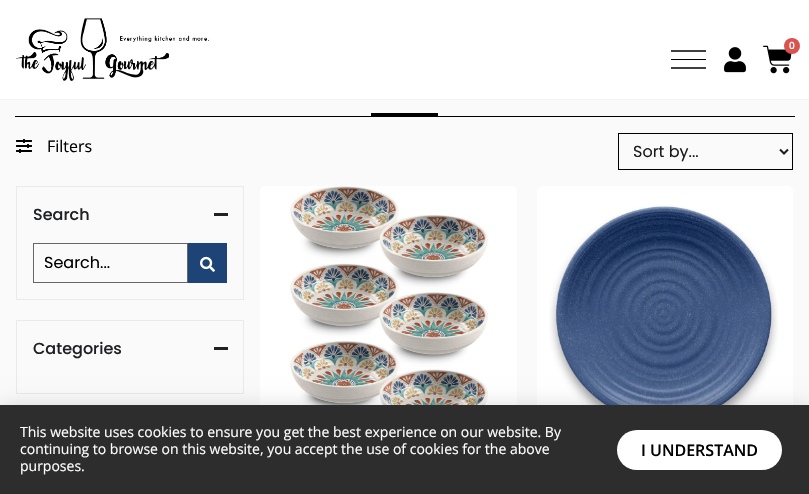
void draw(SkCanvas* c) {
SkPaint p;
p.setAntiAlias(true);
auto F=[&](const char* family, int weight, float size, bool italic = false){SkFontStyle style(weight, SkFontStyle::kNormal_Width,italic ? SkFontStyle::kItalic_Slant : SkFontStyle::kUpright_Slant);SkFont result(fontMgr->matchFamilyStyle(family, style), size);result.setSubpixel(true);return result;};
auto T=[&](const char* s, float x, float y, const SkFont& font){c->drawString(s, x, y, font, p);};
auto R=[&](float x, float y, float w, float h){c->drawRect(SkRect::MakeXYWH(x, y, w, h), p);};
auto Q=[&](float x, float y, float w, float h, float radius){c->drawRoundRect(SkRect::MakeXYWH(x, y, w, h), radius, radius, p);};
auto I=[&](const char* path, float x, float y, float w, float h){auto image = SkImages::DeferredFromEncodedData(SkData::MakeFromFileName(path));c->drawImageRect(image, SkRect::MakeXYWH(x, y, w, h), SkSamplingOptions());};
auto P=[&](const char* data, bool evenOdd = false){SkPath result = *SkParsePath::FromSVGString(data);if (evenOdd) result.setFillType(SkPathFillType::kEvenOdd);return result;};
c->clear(0xfffafafa);
p.setColor(0xffffffff);
R(0,0,809,99);
p.setColor(0xfff4f4f4);
R(0,99,809,1);
I("1.png",16,18,193,63);
I("2.png",763,45,29,29);
p.setColor(0xffd9534f);
c->drawCircle(792,46,8,p);
auto f1 = F("Open Sans",600,10);
p.setColor(0xffffffff);
T("0",789,49,f1);
p.setStroke(true);
p.setStrokeWidth(1.3);
p.setColor(0xff000000);
c->drawPath(P("M671 51h35"),p);
p.setStroke(false);
R(671,59,35,1);
p.setStroke(true);
c->drawPath(P("M671 68h35"),p);
I("3.png",724,47,22,26);
p.setStroke(false);
R(15,116,780,1);
R(371,113,67,3);
I("4.png",16,139,16,14);
auto f2 = F("Open Sans",400,16);
T("Filters",47,152,f2);
p.setStroke(true);
p.setStrokeWidth(1);
c->drawRect(SkRect::MakeXYWH(618.5,133.5,174,36),p);
p.setStrokeWidth(2);
p.setColor(0xff1d1d1d);
c->drawPath(P("M780 149.5l4 4l4-4"),p);
auto f3 = F("Poppins",400,16);
p.setStroke(false);
T("Sort by...",633,157,f3);
p.setStroke(true);
p.setStrokeWidth(1);
p.setColor(0xffeaeaea);
c->drawRect(SkRect::MakeXYWH(16.5,186.5,227,113),p);
auto f4 = F("Poppins",500,16);
p.setStroke(false);
p.setColor(0xff1f2124);
T("Search",33,220,f4);
R(214,213,14,3);
p.setStroke(true);
p.setColor(0xff666666);
c->drawRect(SkRect::MakeXYWH(33.5,243.5,154,39),p);
p.setStroke(false);
p.setColor(0xff000000);
T("Search...",44,268,f3);
p.setColor(0xff1e4477);
R(188,243,39,40);
I("5.png",200,256,15,16);
p.setStroke(true);
p.setColor(0xffeaeaea);
c->drawRect(SkRect::MakeXYWH(16.5,320.5,227,73),p);
p.setStroke(false);
p.setColor(0xff1f2124);
T("Categories",33,354,f4);
R(214,347,14,3);
p.setColor(0xffffffff);
Q(260,186,257,256,5);
I("6.png",290,186,198,219);
Q(537,186,256,256,5);
I("7.png",549,205,229,200);
p.setColor(0x33000000);
p.setMaskFilter(SkMaskFilter::MakeBlur(kNormal_SkBlurStyle, 11.5));
c->drawRect(SkRect::MakeXYWH(-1,410,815,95),p);
p.setMaskFilter(nullptr);
p.setColor(0xff2d2d2d);
R(0,405,809,89);
auto f5 = F("Open Sans",400,14);
p.setColor(0xffffffff);
T("This website uses cookies to ensure you get the best experience on our website. By",20,437,f5);
T("continuing to browse on this website, you accept the use of cookies for the above",20,454,f5);
T("purposes.",20,471,f5);
Q(617,430,165,40,20);
auto f6 = F("Open Sans",600,16);
p.setColor(0xff000000);
T("I UNDERSTAND",641,456,f6);
}
